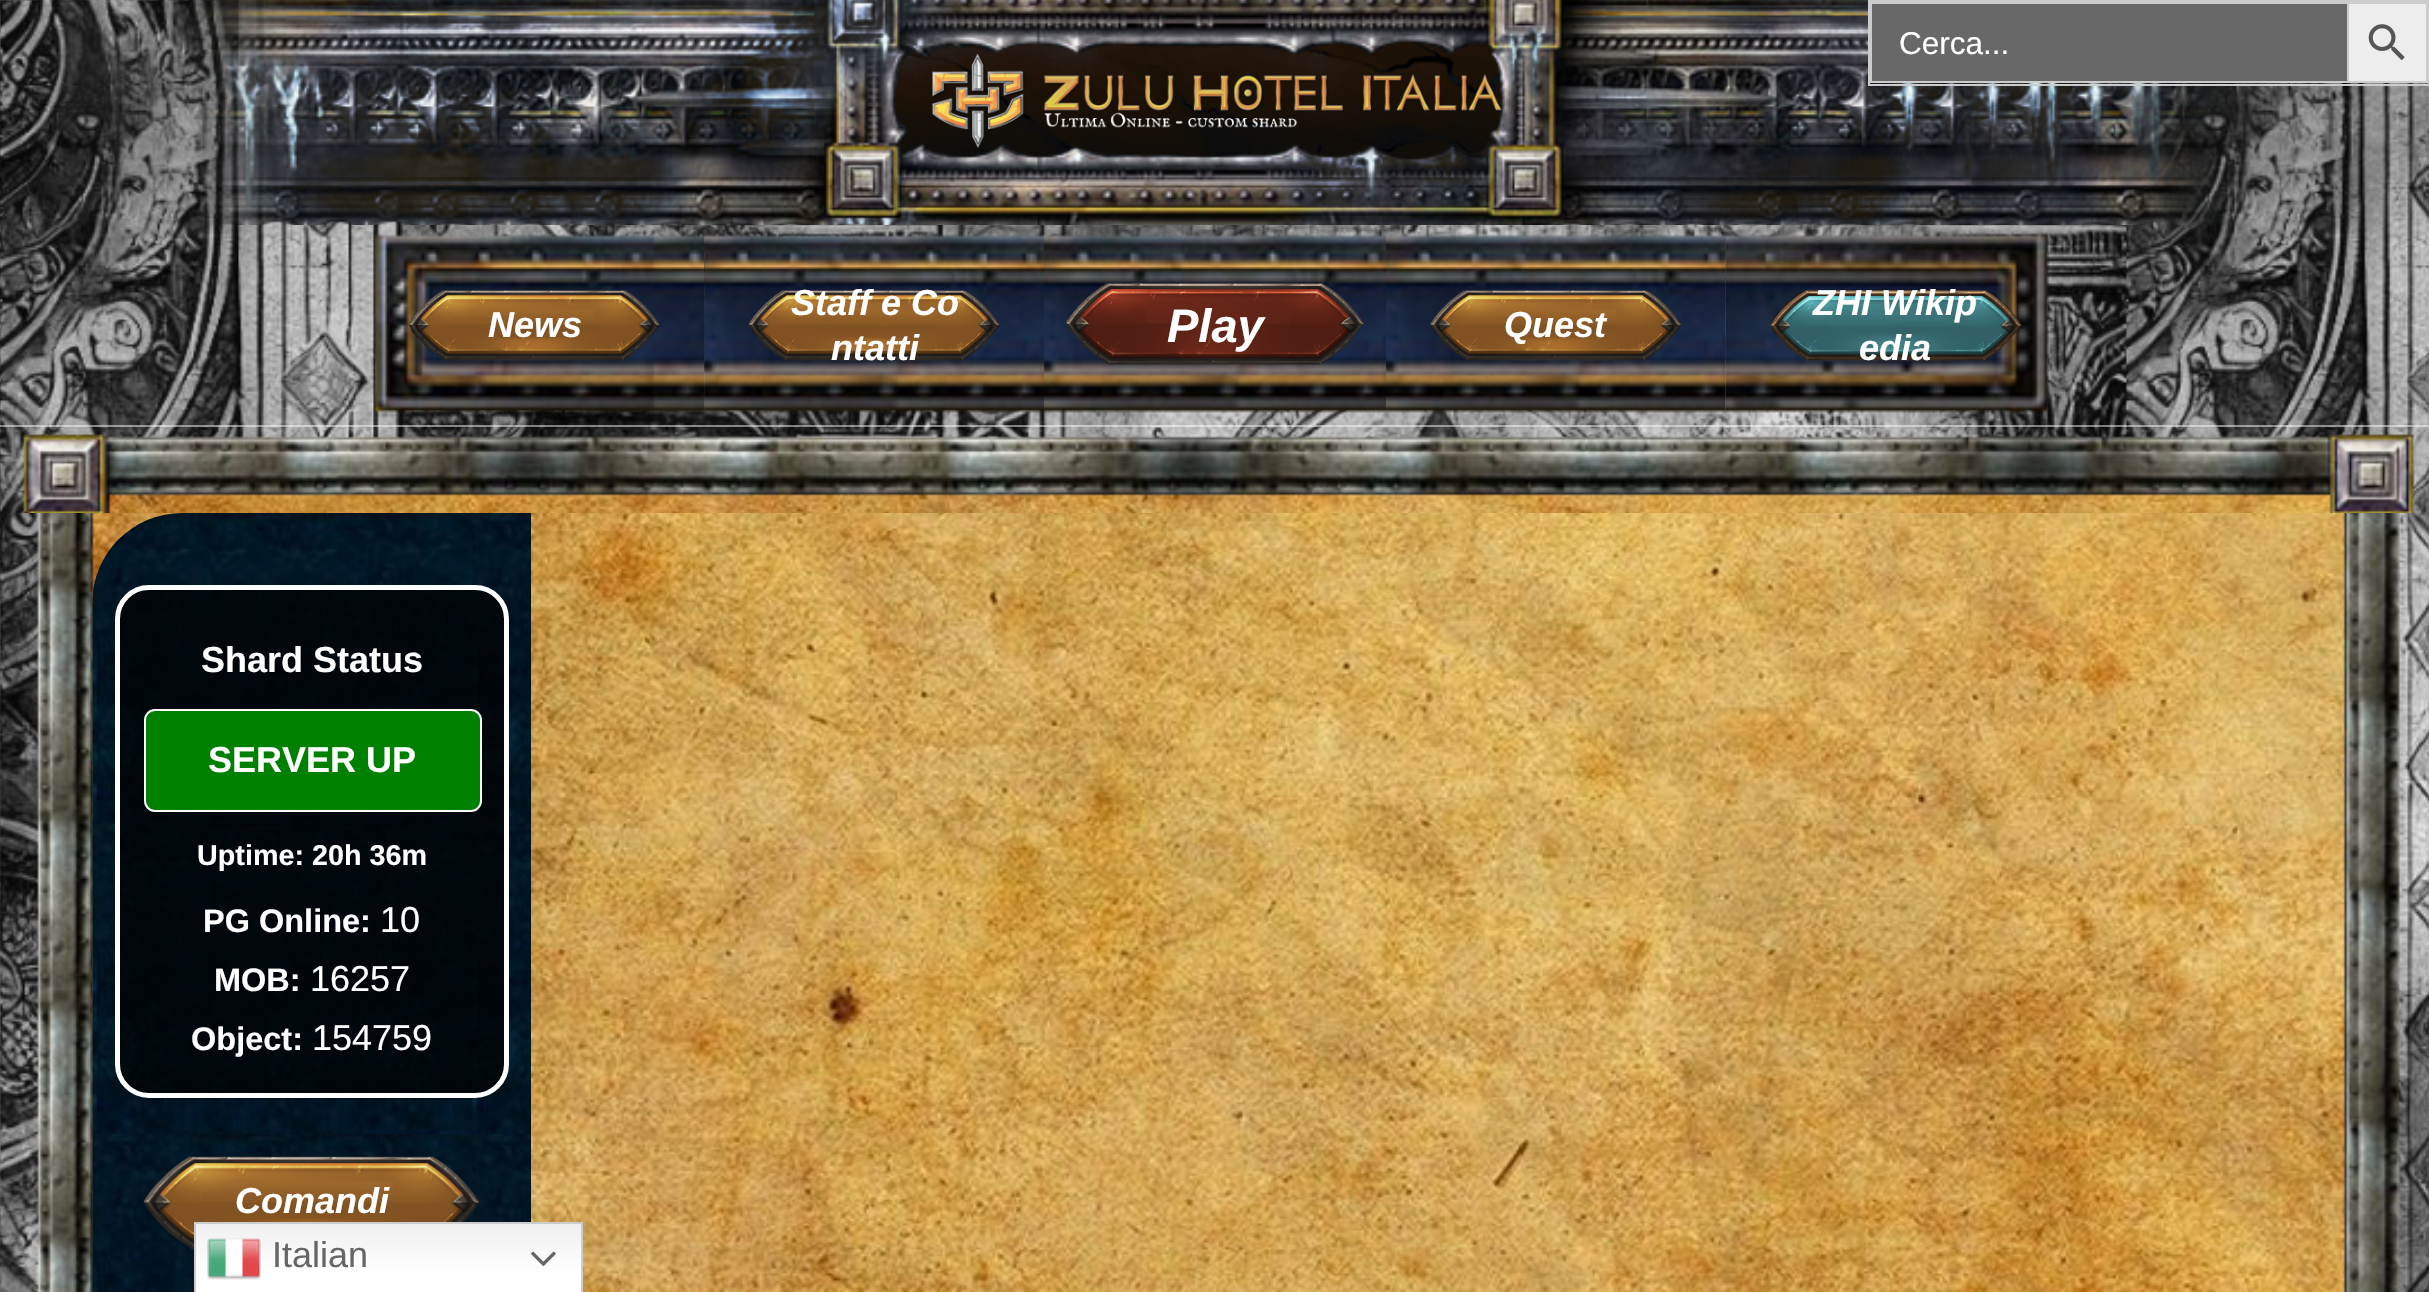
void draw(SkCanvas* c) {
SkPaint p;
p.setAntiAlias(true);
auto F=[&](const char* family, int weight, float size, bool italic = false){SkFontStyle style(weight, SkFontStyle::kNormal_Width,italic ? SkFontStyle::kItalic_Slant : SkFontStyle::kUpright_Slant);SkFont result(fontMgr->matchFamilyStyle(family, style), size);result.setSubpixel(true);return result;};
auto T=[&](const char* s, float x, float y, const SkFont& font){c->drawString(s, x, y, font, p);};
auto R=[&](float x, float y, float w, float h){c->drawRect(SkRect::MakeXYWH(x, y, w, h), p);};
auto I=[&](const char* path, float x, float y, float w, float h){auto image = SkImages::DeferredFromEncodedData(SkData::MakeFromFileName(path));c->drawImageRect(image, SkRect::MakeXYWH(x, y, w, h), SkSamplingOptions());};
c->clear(0xffffffff);
I("1.png",0,0,2429,1292);
I("3.png",194,0,2038,225);
p.setStroke(true);
p.setStrokeWidth(2);
p.setColor(0xffcccccc);
c->drawRect(SkRect::MakeXYWH(1869,1,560,84),p);
p.setStroke(false);
p.setColor(0xff686868);
R(1872,4,475,77);
p.setColor(0xffcccccc);
R(1870,2,477,2);
R(1870,81,477,2);
R(1870,2,2,81);
auto f1 = F("Liberation Sans",400,31.5);
p.setColor(0xffffffff);
T("Cerca...",1899,54,f1);
p.setColor(0xffededed);
c->drawRect(SkRect::MakeXYWH(2348,3,79,79),p);
p.setStroke(true);
p.setColor(0xffcccccc);
c->drawRect(SkRect::MakeXYWH(2348,3,79,79),p);
I("2.png",2368,24,37,37);
I("4.png",932,53,570,95);
I("5.png",374,234,331,179);
I("6.png",408,290,253,71);
auto f2 = F("Liberation Sans",700,36,true);
p.setStroke(false);
p.setColor(0xffffffff);
T("News",488,337,f2);
I("7.png",704,234,340,179);
I("8.png",748,290,253,71);
T("Staff e Co",791,315,f2);
T("ntatti",831,360,f2);
I("9.png",1044,234,342,179);
I("10.png",1066,283,298,82);
auto f3 = F("Liberation Sans",700,47,true);
T("Play",1167,342,f3);
I("11.png",1386,234,340,179);
I("12.png",1430,290,252,71);
T("Quest",1504,337,f2);
I("13.png",1725,234,324,179);
I("14.png",1769,290,253,71);
T("ZHI Wikip",1813,315,f2);
T("edia",1859,360,f2);
p.setColor(0x78ffffff);
R(0,425,2429,2);
I("15.png",23,434,2392,79);
I("16.png",37,513,2363,779);
I("17.png",92,513,439,779);
p.setColor(0xb3000000);
c->drawRoundRect(SkRect::MakeXYWH(117.5,587.5,389,508),31.5,31.5,p);
p.setStroke(true);
p.setStrokeWidth(5);
p.setColor(0xffffffff);
c->drawRoundRect(SkRect::MakeXYWH(117.5,587.5,389,508),31.5,31.5,p);
auto f4 = F("Liberation Sans",700,36);
p.setStroke(false);
T("Shard Status",201,672,f4);
p.setColor(0xff008000);
c->drawRoundRect(SkRect::MakeXYWH(145,710,336,101),10,10,p);
p.setStroke(true);
p.setStrokeWidth(2);
p.setColor(0xffffffff);
c->drawRoundRect(SkRect::MakeXYWH(145,710,336,101),10,10,p);
p.setStroke(false);
T("SERVER UP",208,772,f4);
auto f5 = F("Liberation Sans",700,28.75);
T("Uptime: 20h 36m",197,865,f5);
auto f6 = F("Liberation Sans",700,32.5);
T("PG Online:",203,932,f6);
auto f7 = F("Liberation Sans",400,36);
T("10",380,932,f7);
T("MOB:",214,991,f6);
T("16257",310,991,f7);
T("Object:",191,1050,f6);
T("154759",312,1050,f7);
I("18.png",143,1156,337,94);
T("Comandi",235,1213,f2);
{
const SkColor colors[] = {0xffefefef,0xffffffff};
const float stops[] = {0,.7};
const SkPoint ends[] = {{388,1222}, {388,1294}};
p.setShader(SkGradientShader::MakeLinear(ends, colors, stops, 2, SkTileMode::kClamp));
p.setAlpha(255);
}
R(196,1224,385,68);
p.setStroke(true);
p.setShader(nullptr);
p.setColor(0xffcccccc);
c->drawRect(SkRect::MakeXYWH(195,1223,387,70),p);
I("19.png",207,1238,54,42);
p.setStroke(false);
p.setColor(0xff666666);
T("Italian",272,1267,f7);
I("20.png",531,1251,25,15);
}
